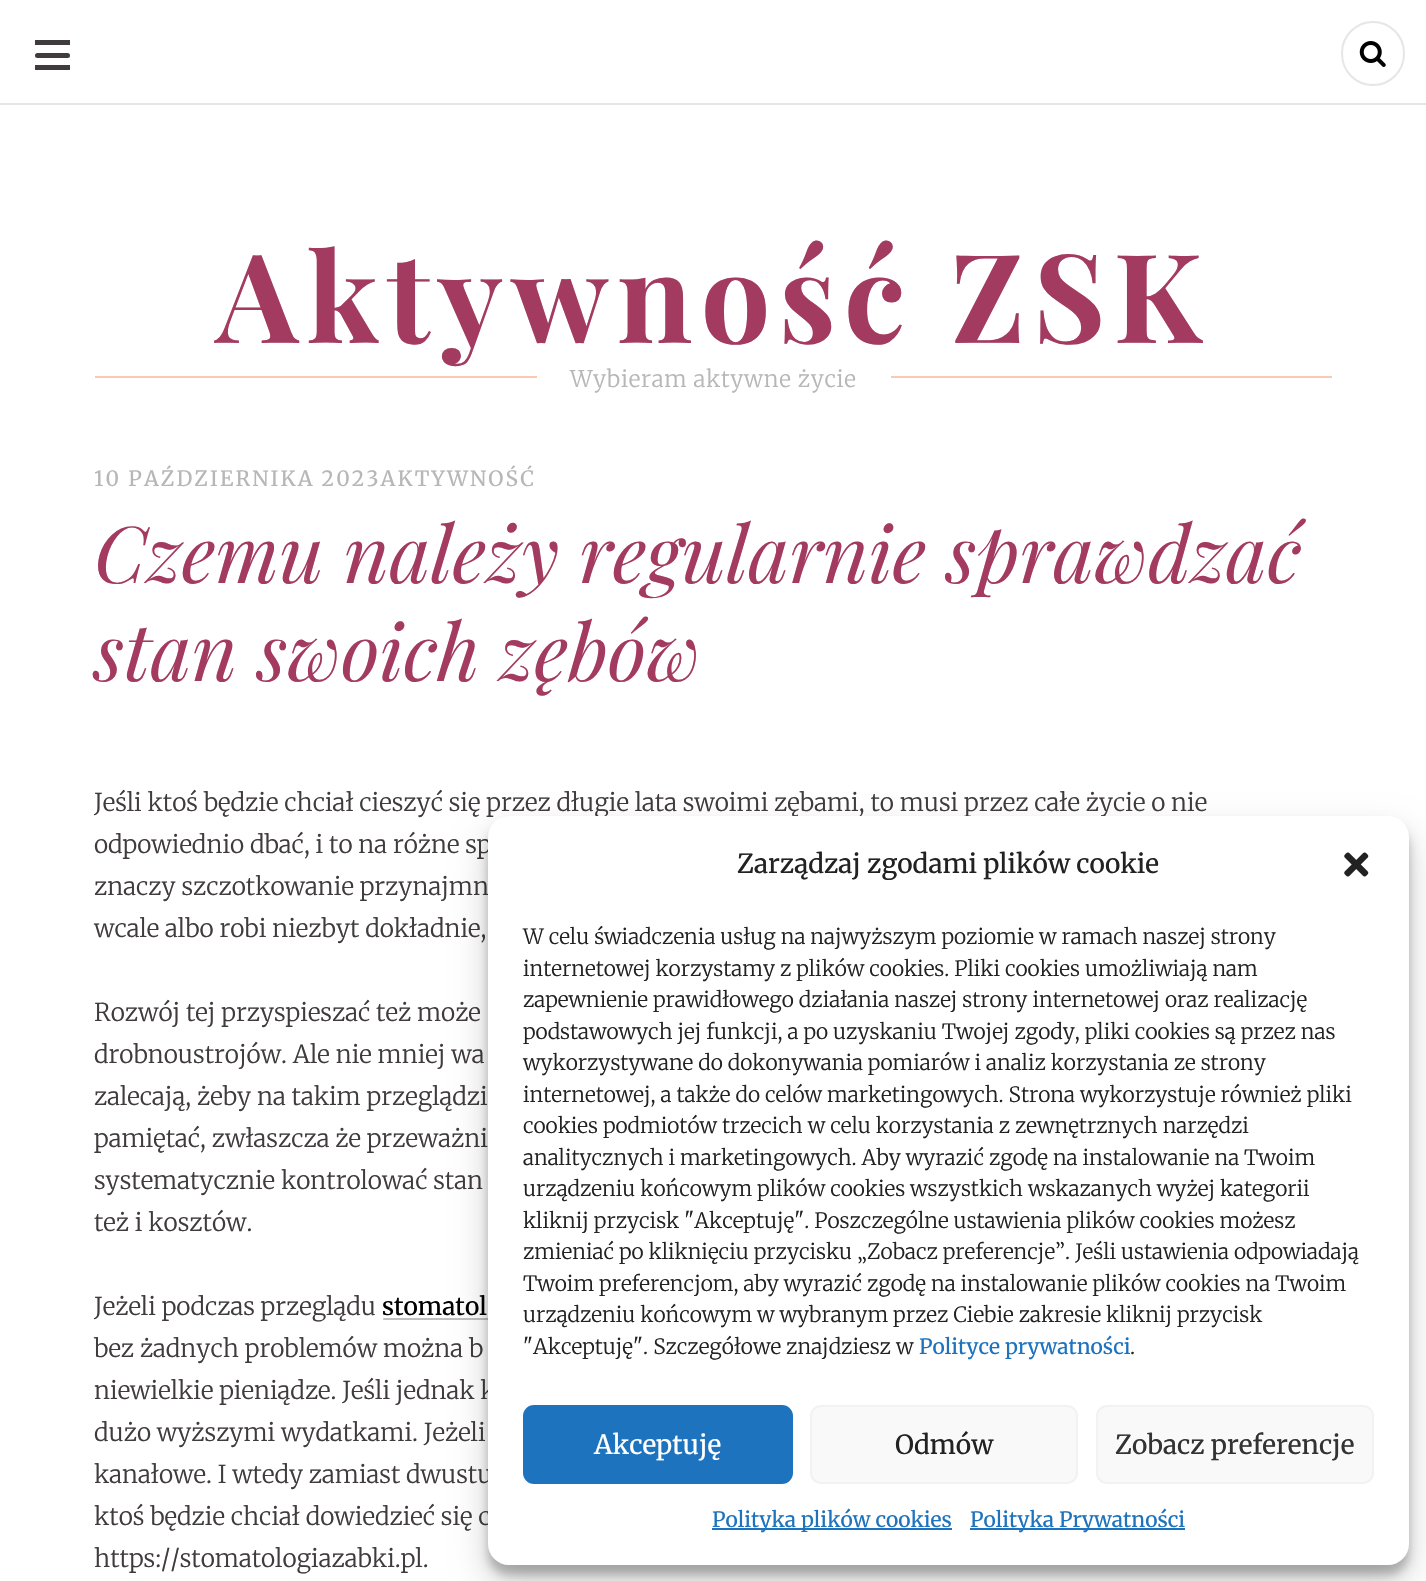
void draw(SkCanvas* c) {
SkPaint p;
p.setAntiAlias(true);
auto F=[&](const char* family, int weight, float size, bool italic = false){SkFontStyle style(weight, SkFontStyle::kNormal_Width,italic ? SkFontStyle::kItalic_Slant : SkFontStyle::kUpright_Slant);SkFont result(fontMgr->matchFamilyStyle(family, style), size);result.setSubpixel(true);return result;};
auto T=[&](const char* s, float x, float y, const SkFont& font){c->drawString(s, x, y, font, p);};
auto L=[&](const char* s, float x, float y, const SkFont& font, const SkPaint& ink, float letter, float word){std::vector<SkGlyphID> glyphs(font.countText(s, strlen(s), SkTextEncoding::kUTF8));std::vector<float> xs(glyphs.size());font.textToGlyphs(s, strlen(s), SkTextEncoding::kUTF8, glyphs);font.getXPos(glyphs, xs, x);float extra = 0;for (size_t i = 0; i < glyphs.size(); i++) {xs[i] += extra;extra += letter + word * (glyphs[i] == font.unicharToGlyph(' '));}c->drawTextBlob(SkTextBlob::MakeFromPosHGlyphs(glyphs, xs, y, font), 0, 0, ink);};
auto R=[&](float x, float y, float w, float h){c->drawRect(SkRect::MakeXYWH(x, y, w, h), p);};
auto Q=[&](float x, float y, float w, float h, float radius){c->drawRoundRect(SkRect::MakeXYWH(x, y, w, h), radius, radius, p);};
auto I=[&](const char* path, float x, float y, float w, float h){auto image = SkImages::DeferredFromEncodedData(SkData::MakeFromFileName(path));c->drawImageRect(image, SkRect::MakeXYWH(x, y, w, h), SkSamplingOptions());};
c->clear(0xffffffff);
p.setColor(0xffe6e6e6);
R(0,103,1426,2);
p.setColor(0xff403b3c);
Q(35,53,35,5,2.5);
R(35,40,35,5);
R(35,65,35,5);
p.setStroke(true);
p.setStrokeWidth(2);
p.setColor(0xffe6e6e6);
c->drawRoundRect(SkRect::MakeXYWH(1342,22,62,63),31,31,p);
I("1.png",1359,41,27,26);
auto f1 = F("Playfair Display",700,123.5);
p.setStroke(false);
p.setColor(0xffa33b61);
L("Aktywność ZSK",216,343,f1,p,8.25,0);
p.setColor(0xfffcc9b0);
R(95,376,1237,2);
p.setColor(0xffffffff);
R(537,376,354,2);
auto f2 = F("Merriweather",300,22.75);
p.setColor(0xffb8b6b7);
L("Wybieram aktywne życie",570,387,f2,p,.7,0);
auto f3 = F("Merriweather",400,21);
L("10 PAŹDZIERNIKA 2023AKTYWNOŚĆ",94,486,f3,p,2.1,0);
auto f4 = F("Playfair Display",400,78.75,true);
p.setColor(0xffa33b61);
T("Czemu należy regularnie sprawdzać",94,583,f4);
T("stan swoich zębów",94,681,f4);
auto f5 = F("Merriweather",300,24.5);
p.setColor(0xff403b3c);
T("Jeśli ktoś będzie chciał cieszyć się przez długie lata swoimi zębami, to musi przez całe życie o nie",94,811,f5);
T("odpowiednio dbać, i to na różne sp",94,853,f5);
T("znaczy szczotkowanie przynajmn",94,895,f5);
T("wcale albo robi niezbyt dokładnie,",94,937,f5);
T("Rozwój tej przyspieszać też może",94,1021,f5);
T("drobnoustrojów. Ale nie mniej wa",94,1063,f5);
T("zalecają, żeby na takim przeglądzi",94,1105,f5);
T("pamiętać, zwłaszcza że przeważni",94,1147,f5);
T("systematycznie kontrolować stan",94,1189,f5);
T("też i kosztów.",94,1231,f5);
T("Jeżeli podczas przeglądu",94,1315,f5);
auto f6 = F("Merriweather",400,24.5);
p.setColor(0xff000000);
T("stomatol",382,1315,f6);
p.setColor(0xffbfbfbf);
Q(383,1318,249,2,1);
p.setColor(0xff403b3c);
T("bez żadnych problemów można b",94,1357,f5);
T("niewielkie pieniądze. Jeśli jednak k",94,1399,f5);
T("dużo wyższymi wydatkami. Jeżeli",94,1441,f5);
T("kanałowe. I wtedy zamiast dwustu",94,1483,f5);
T("ktoś będzie chciał dowiedzieć się c",94,1525,f5);
T("https://stomatologiazabki.pl.",94,1567,f5);
p.setColor(0x3b000000);
p.setMaskFilter(SkMaskFilter::MakeBlur(kNormal_SkBlurStyle, 5));
c->drawRoundRect(SkRect::MakeXYWH(488,826,921,749),21,21,p);
p.setMaskFilter(nullptr);
p.setColor(0x30000000);
p.setMaskFilter(SkMaskFilter::MakeBlur(kNormal_SkBlurStyle, 17.5));
c->drawRoundRect(SkRect::MakeXYWH(488,833,921,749),21,21,p);
p.setMaskFilter(nullptr);
p.setColor(0xffffffff);
Q(488,816,921,749,21);
auto f7 = F("Merriweather",400,26.25);
p.setColor(0xff222222);
T("Zarządzaj zgodami plików cookie",737,873,f7);
I("2.png",1344,852,25,25);
auto f8 = F("Merriweather",300,21);
T("W celu świadczenia usług na najwyższym poziomie w ramach naszej strony",523,944,f8);
T("internetowej korzystamy z plików cookies. Pliki cookies umożliwiają nam",523,976,f8);
T("zapewnienie prawidłowego działania naszej strony internetowej oraz realizację",523,1007,f8);
T("podstawowych jej funkcji, a po uzyskaniu Twojej zgody, pliki cookies są przez nas",523,1039,f8);
T("wykorzystywane do dokonywania pomiarów i analiz korzystania ze strony",523,1070,f8);
T("internetowej, a także do celów marketingowych. Strona wykorzystuje również pliki",523,1102,f8);
T("cookies podmiotów trzecich w celu korzystania z zewnętrznych narzędzi",523,1133,f8);
T("analitycznych i marketingowych. Aby wyrazić zgodę na instalowanie na Twoim",523,1165,f8);
T("urządzeniu końcowym plików cookies wszystkich wskazanych wyżej kategorii",523,1196,f8);
T("kliknij przycisk \"Akceptuję\". Poszczególne ustawienia plików cookies możesz",523,1228,f8);
T("zmieniać po kliknięciu przycisku „Zobacz preferencje”. Jeśli ustawienia odpowiadają",523,1259,f8);
T("Twoim preferencjom, aby wyrazić zgodę na instalowanie plików cookies na Twoim",523,1291,f8);
T("urządzeniu końcowym w wybranym przez Ciebie zakresie kliknij przycisk",523,1322,f8);
T("\"Akceptuję\". Szczegółowe znajdziesz w",523,1354,f8);
p.setColor(0xff1e73be);
T("Polityce prywatności",919,1354,f3);
p.setColor(0xff222222);
T(".",1130,1354,f8);
p.setColor(0xff1e73be);
c->drawRoundRect(SkRect::MakeXYWH(524,1406,268,77),10,10,p);
p.setStroke(true);
c->drawRoundRect(SkRect::MakeXYWH(524,1406,268,77),10,10,p);
p.setStroke(false);
p.setColor(0xffffffff);
T("Akceptuję",594,1454,f7);
p.setColor(0xfff9f9f9);
c->drawRoundRect(SkRect::MakeXYWH(811,1406,266,77),10,10,p);
p.setStroke(true);
p.setColor(0xfff2f2f2);
c->drawRoundRect(SkRect::MakeXYWH(811,1406,266,77),10,10,p);
p.setStroke(false);
p.setColor(0xff222222);
T("Odmów",895,1454,f7);
p.setColor(0xfff9f9f9);
c->drawRoundRect(SkRect::MakeXYWH(1097,1406,276,77),10,10,p);
p.setStroke(true);
p.setColor(0xfff2f2f2);
c->drawRoundRect(SkRect::MakeXYWH(1097,1406,276,77),10,10,p);
p.setStroke(false);
p.setColor(0xff333333);
T("Zobacz preferencje",1115,1454,f7);
p.setColor(0xff1e73be);
R(712,1528,240,2);
T("Polityka plików cookies",712,1527,f3);
R(970,1528,215,2);
T("Polityka Prywatności",970,1527,f3);
}
